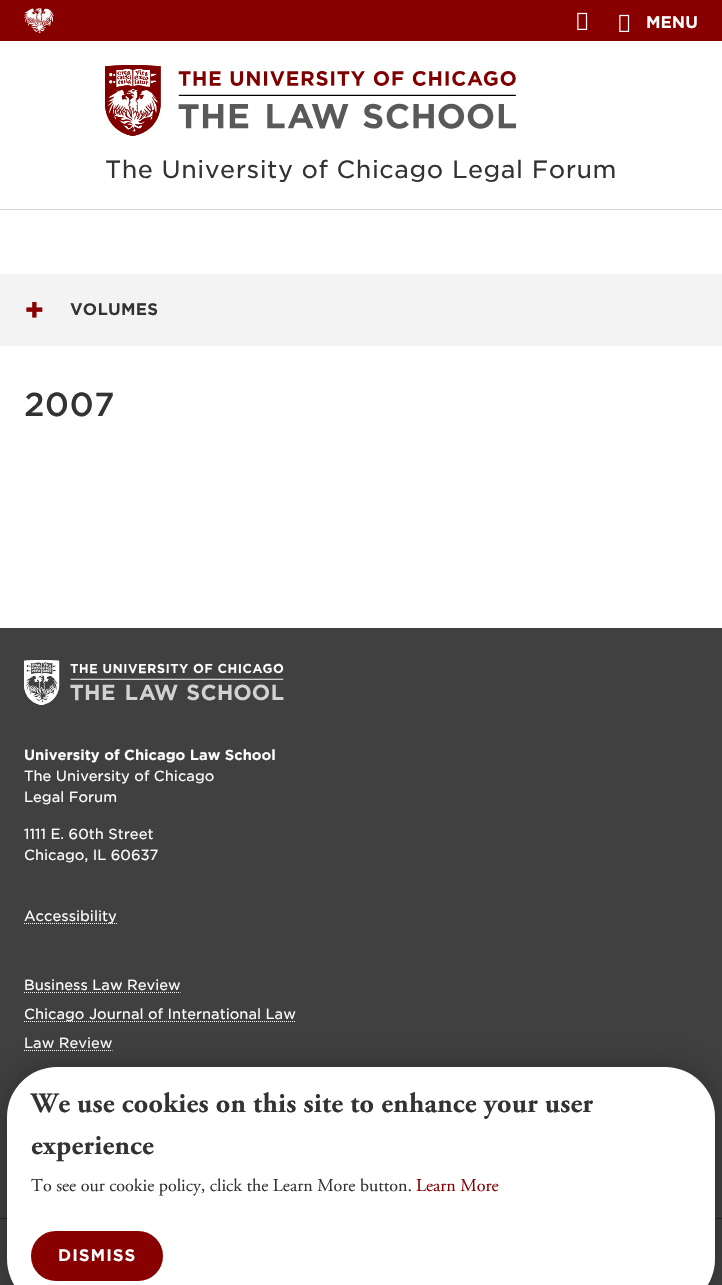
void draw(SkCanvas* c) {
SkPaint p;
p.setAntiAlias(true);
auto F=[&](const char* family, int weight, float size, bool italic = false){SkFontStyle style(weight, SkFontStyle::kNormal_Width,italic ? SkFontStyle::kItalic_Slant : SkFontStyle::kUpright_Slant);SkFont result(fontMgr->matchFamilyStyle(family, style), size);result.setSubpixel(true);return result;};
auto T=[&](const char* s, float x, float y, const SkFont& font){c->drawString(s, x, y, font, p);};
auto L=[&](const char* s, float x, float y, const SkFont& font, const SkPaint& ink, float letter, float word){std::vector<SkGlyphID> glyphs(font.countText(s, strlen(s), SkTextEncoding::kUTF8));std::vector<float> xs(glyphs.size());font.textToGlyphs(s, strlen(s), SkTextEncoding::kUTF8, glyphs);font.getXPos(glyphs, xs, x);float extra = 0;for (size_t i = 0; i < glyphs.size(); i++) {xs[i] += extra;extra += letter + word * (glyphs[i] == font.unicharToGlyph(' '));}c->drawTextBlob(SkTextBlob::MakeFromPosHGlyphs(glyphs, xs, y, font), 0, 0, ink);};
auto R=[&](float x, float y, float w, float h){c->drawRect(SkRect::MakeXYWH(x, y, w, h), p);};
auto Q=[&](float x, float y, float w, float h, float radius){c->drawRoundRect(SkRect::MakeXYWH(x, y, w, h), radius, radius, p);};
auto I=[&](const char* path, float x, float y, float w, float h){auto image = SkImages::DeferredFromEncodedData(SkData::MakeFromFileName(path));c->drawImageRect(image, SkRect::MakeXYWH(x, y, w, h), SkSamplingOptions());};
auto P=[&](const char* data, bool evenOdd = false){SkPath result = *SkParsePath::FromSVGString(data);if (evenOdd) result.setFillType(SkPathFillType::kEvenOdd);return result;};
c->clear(0xffffffff);
p.setColor(0xffd8d8d8);
R(0,209,722,1);
p.setColor(0xff880000);
R(0,0,722,41);
I("1.png",24,8,30,25);
I("2.png",577,12,11,18);
I("2.png",619,14,11,18);
auto f1 = F("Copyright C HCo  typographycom",400,16);
p.setColor(0xffffffff);
T("MENU",646,28,f1);
I("3.png",105,65,412,71);
auto f2 = F("Copyright C HCo  typographycom",300,24);
p.setColor(0xff333333);
L("The University of Chicago Legal Forum",105,178,f2,p,.5,0);
p.setColor(0xfff3f3f3);
R(0,274,722,72);
auto f3 = F("Noto Sans",900,32);
p.setColor(0xff880000);
L("+",25,321,f3,p,.25,0);
p.setColor(0xff333333);
L("VOLUMES",70,315,f1,p,.25,0);
auto f4 = F("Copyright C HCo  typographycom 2",300,32);
L("2007",24,416,f4,p,.25,0);
p.setColor(0xff404040);
R(0,628,722,657);
I("4.png",24,660,260,45);
auto f5 = F("Copyright C HCo  typographycom",400,14);
p.setColor(0xffffffff);
T("University of Chicago Law School",24,760,f5);
auto f6 = F("Copyright C HCo  typographycom",300,14);
T("The University of Chicago",24,781,f6);
T("Legal Forum",24,802,f6);
T("1111 E. 60th Street",24,839,f6);
T("Chicago, IL 60637",24,860,f6);
p.setStroke(true);
p.setStrokeWidth(1);
p.setPathEffect(SkDashPathEffect::Make({{1,1}}, 0));
c->drawPath(P("M24 923.5h93"),p);
p.setPathEffect(nullptr);
p.setStroke(false);
T("Accessibility",24,921,f6);
T("Business Law Review",24,990,f6);
p.setStroke(true);
p.setPathEffect(SkDashPathEffect::Make({{1,1}}, 0));
c->drawPath(P("M24 992.5h156.5"),p);
p.setPathEffect(nullptr);
p.setPathEffect(SkDashPathEffect::Make({{1,1}}, 0));
c->drawPath(P("M24 1021.5h272"),p);
p.setPathEffect(nullptr);
p.setStroke(false);
T("Chicago Journal of International Law",24,1019,f6);
T("Law Review",24,1048,f6);
p.setStroke(true);
p.setPathEffect(SkDashPathEffect::Make({{1,1}}, 0));
c->drawPath(P("M24 1050.5h88.5"),p);
p.setPathEffect(nullptr);
p.setStroke(false);
p.setColor(0xff262525);
R(0,1218,722,1);
p.setColor(0x4d000000);
p.setMaskFilter(SkMaskFilter::MakeBlur(kNormal_SkBlurStyle, 17));
c->drawRoundRect(SkRect::MakeXYWH(7,1069,708,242),50,50,p);
p.setMaskFilter(nullptr);
p.setColor(0xffffffff);
Q(7,1067,708,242,50);
auto f7 = F("Adobe Garamond",700,28);
p.setColor(0xff333333);
L("We use cookies on this site to enhance your user",31,1112,f7,p,.25,0);
L("experience",31,1154,f7,p,.25,0);
auto f8 = F("Adobe Garamond",400,18);
T("To see our cookie policy, click the Learn More button.",31,1191,f8);
p.setColor(0xff880000);
T("Learn More",416,1191,f8);
c->drawRoundRect(SkRect::MakeXYWH(32.5,1232.5,129,47),23.5,23.5,p);
p.setStroke(true);
p.setStrokeWidth(3);
c->drawRoundRect(SkRect::MakeXYWH(32.5,1232.5,129,47),23.5,23.5,p);
p.setStroke(false);
p.setColor(0xffffffff);
L("DISMISS",58,1261,f1,p,1,0);
}
